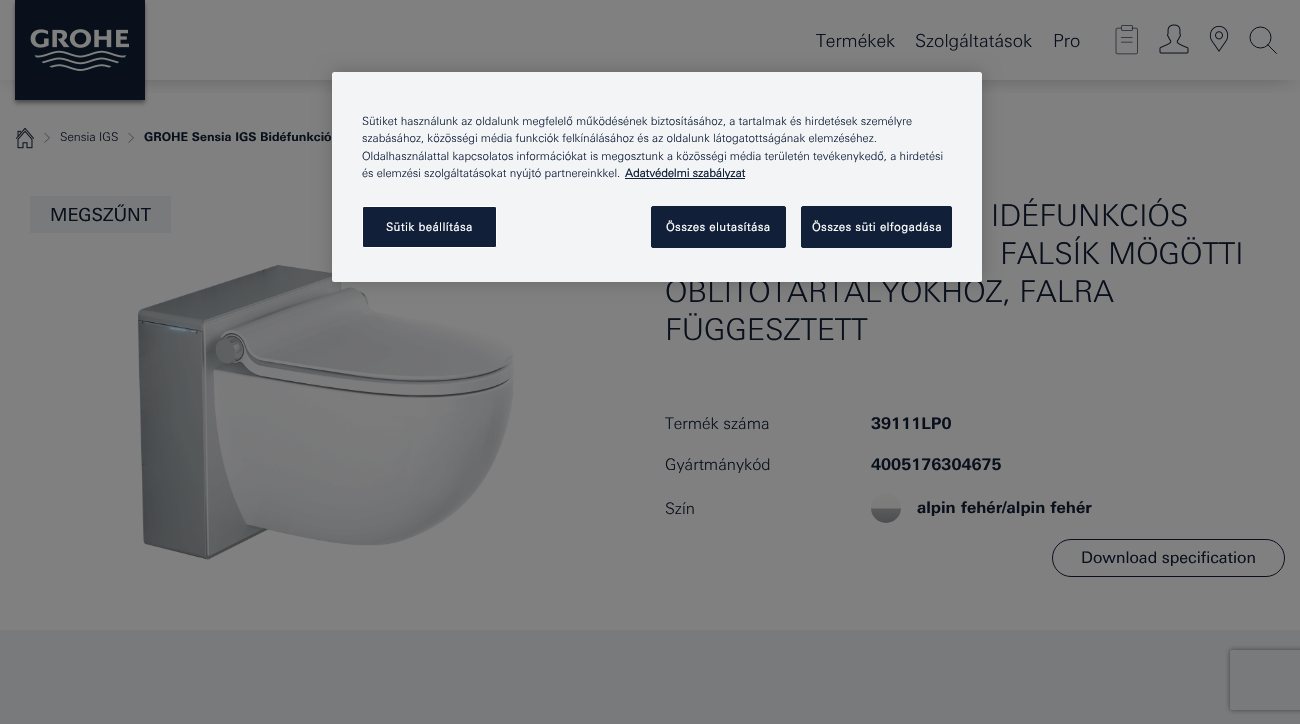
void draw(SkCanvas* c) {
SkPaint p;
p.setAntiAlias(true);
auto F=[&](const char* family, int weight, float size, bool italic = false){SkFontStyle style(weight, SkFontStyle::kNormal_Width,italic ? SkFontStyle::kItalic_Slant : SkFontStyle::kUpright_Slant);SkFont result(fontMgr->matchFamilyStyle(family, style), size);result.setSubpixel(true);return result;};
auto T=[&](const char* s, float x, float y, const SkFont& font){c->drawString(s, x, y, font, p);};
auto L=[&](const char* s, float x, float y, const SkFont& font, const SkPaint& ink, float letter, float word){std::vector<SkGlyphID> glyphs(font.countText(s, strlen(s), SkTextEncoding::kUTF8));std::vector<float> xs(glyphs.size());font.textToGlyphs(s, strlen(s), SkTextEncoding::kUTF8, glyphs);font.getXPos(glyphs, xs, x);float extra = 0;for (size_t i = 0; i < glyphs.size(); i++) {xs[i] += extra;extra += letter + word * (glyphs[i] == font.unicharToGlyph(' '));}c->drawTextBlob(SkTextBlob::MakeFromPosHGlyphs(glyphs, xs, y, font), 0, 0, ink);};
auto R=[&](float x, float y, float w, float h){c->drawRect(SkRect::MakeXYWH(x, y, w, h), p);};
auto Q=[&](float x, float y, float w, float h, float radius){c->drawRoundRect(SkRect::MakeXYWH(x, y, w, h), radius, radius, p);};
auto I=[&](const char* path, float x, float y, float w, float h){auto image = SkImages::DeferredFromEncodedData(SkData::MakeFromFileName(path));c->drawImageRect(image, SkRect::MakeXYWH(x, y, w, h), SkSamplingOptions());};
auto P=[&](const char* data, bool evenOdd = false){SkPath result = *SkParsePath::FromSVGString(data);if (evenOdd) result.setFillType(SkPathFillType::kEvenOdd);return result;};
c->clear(0xff808080);
c->save();
c->clipRect(SkRect::MakeXYWH(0,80,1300,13));
p.setColor(0x66000000);
p.setMaskFilter(SkMaskFilter::MakeBlur(kNormal_SkBlurStyle, 12));
c->drawRect(SkRect::MakeXYWH(10,13,1280,60),p);
p.setMaskFilter(nullptr);
c->restore();
p.setMaskFilter(SkMaskFilter::MakeBlur(kNormal_SkBlurStyle, 2));
c->drawRect(SkRect::MakeXYWH(15,3,130,100),p);
p.setMaskFilter(nullptr);
p.setColor(0xff09101c);
R(15,0,130,100);
I("1.png",30,29,99,42);
auto f1 = F("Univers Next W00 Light",300,18);
T("Termékek",816,47,f1);
T("Szolgáltatások",915,47,f1);
T("Pro",1053,47,f1);
I("2.png",1115,25,23,30);
I("3.png",1159,24,30,30);
I("4.png",1209,25,20,27);
p.setStroke(true);
p.setStrokeWidth(1);
c->drawPath(P("M1276.5 53.5l-9-9z"),p);
c->drawCircle(1260.5,37.5,10.5,p);
I("5.png",16,128,18,21);
p.setStrokeWidth(.5);
c->drawPath(P("M44.5 133l5 5l-5 4.5"),p);
auto f2 = F("Univers Next W00 Light",300,12);
p.setStroke(false);
T("Sensia IGS",60,141,f2);
p.setStroke(true);
c->drawPath(P("M128.5 133l5 5l-5 4.5"),p);
auto f3 = F("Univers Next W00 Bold",700,12);
p.setStroke(false);
T("GROHE Sensia IGS Bidéfunkció",144,141,f3);
p.setColor(0xff797a7b);
R(30,196,141,37);
auto f4 = F("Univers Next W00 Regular",400,18);
p.setColor(0xff09101c);
T("MEGSZŰNT",50,221,f4);
I("6.png",138,264,376,296);
auto f5 = F("Univers Next W00 Light",300,30);
T("IDÉFUNKCIÓS",991,226,f5);
T("FALSÍK MÖGÖTTI",1000,264,f5);
T("ÖBLÍTŐTARTÁLYOKHOZ, FALRA",665,302,f5);
T("FÜGGESZTETT",665,340,f5);
auto f6 = F("Univers Next W00 Light",300,16);
T("Termék száma",665,429,f6);
auto f7 = F("Univers Next W00 Bold",700,16);
T("39111LP0",871,429,f7);
T("Gyártmánykód",665,470,f6);
T("4005176304675",871,470,f7);
T("Szín",665,514,f6);
I("7.png",871,493,30,30);
T("alpin fehér/alpin fehér",917,513,f7);
p.setStroke(true);
p.setStrokeWidth(1);
c->drawRoundRect(SkRect::MakeXYWH(1052.5,539.5,232,37),18.5,18.5,p);
auto f8 = F("Univers Next W00 Regular",400,16);
p.setStroke(false);
T("Download specification",1081,563,f8);
p.setColor(0xff797a7b);
R(0,630,1300,94);
p.setColor(0x33000000);
p.setMaskFilter(SkMaskFilter::MakeBlur(kNormal_SkBlurStyle, 9));
c->drawRoundRect(SkRect::MakeXYWH(332,72,650,210),2.5,2.5,p);
p.setMaskFilter(nullptr);
p.setColor(0xfff2f4f6);
Q(332,72,650,210,2.5);
auto f9 = F("Univers Next W00 Light",300,11.38);
p.setColor(0xff112038);
T("Sütiket használunk az oldalunk megfelelő működésének biztosításához, a tartalmak és hirdetések személyre",362,125,f9);
T("szabásához, közösségi média funkciók felkínálásához és az oldalunk látogatottságának elemzéséhez.",362,142,f9);
T("Oldalhasználattal kapcsolatos információkat is megosztunk a közösségi média területén tevékenykedő, a hirdetési",362,160,f9);
T("és elemzési szolgáltatásokat nyújtó partnereinkkel.",362,177,f9);
R(625,178,120,1);
auto f10 = F("Univers Next W00 Light",700,11.38);
T("Adatvédelmi szabályzat",625,177,f10);
c->drawRoundRect(SkRect::MakeXYWH(362.5,206.5,134,41),1.5,1.5,p);
p.setStroke(true);
p.setColor(0xffffffff);
c->drawRoundRect(SkRect::MakeXYWH(362.5,206.5,134,41),1.5,1.5,p);
p.setStroke(false);
L("Sütik beállítása",386,231,f10,p,.6,0);
p.setColor(0xff112038);
c->drawRoundRect(SkRect::MakeXYWH(651.5,206.5,134,41),1.5,1.5,p);
p.setStroke(true);
c->drawRoundRect(SkRect::MakeXYWH(651.5,206.5,134,41),1.5,1.5,p);
p.setStroke(false);
p.setColor(0xffffffff);
L("Összes elutasítása",666,231,f10,p,.6,0);
p.setColor(0xff112038);
c->drawRoundRect(SkRect::MakeXYWH(801.5,206.5,150,41),1.5,1.5,p);
p.setStroke(true);
c->drawRoundRect(SkRect::MakeXYWH(801.5,206.5,150,41),1.5,1.5,p);
p.setStroke(false);
p.setColor(0xffffffff);
L("Összes süti elfogadása",812,231,f10,p,.6,0);
c->save();
c->clipPath(P("M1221 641h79v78h-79zm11 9h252c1 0 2 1 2 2v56c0 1-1 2-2 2h-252c-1 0-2-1-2-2v-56c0-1 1-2 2-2z",true),true);
p.setColor(0xff404040);
p.setMaskFilter(SkMaskFilter::MakeBlur(kNormal_SkBlurStyle, 2.5));
c->drawRoundRect(SkRect::MakeXYWH(1230,650,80,60),2,2,p);
p.setMaskFilter(nullptr);
c->restore();
}
